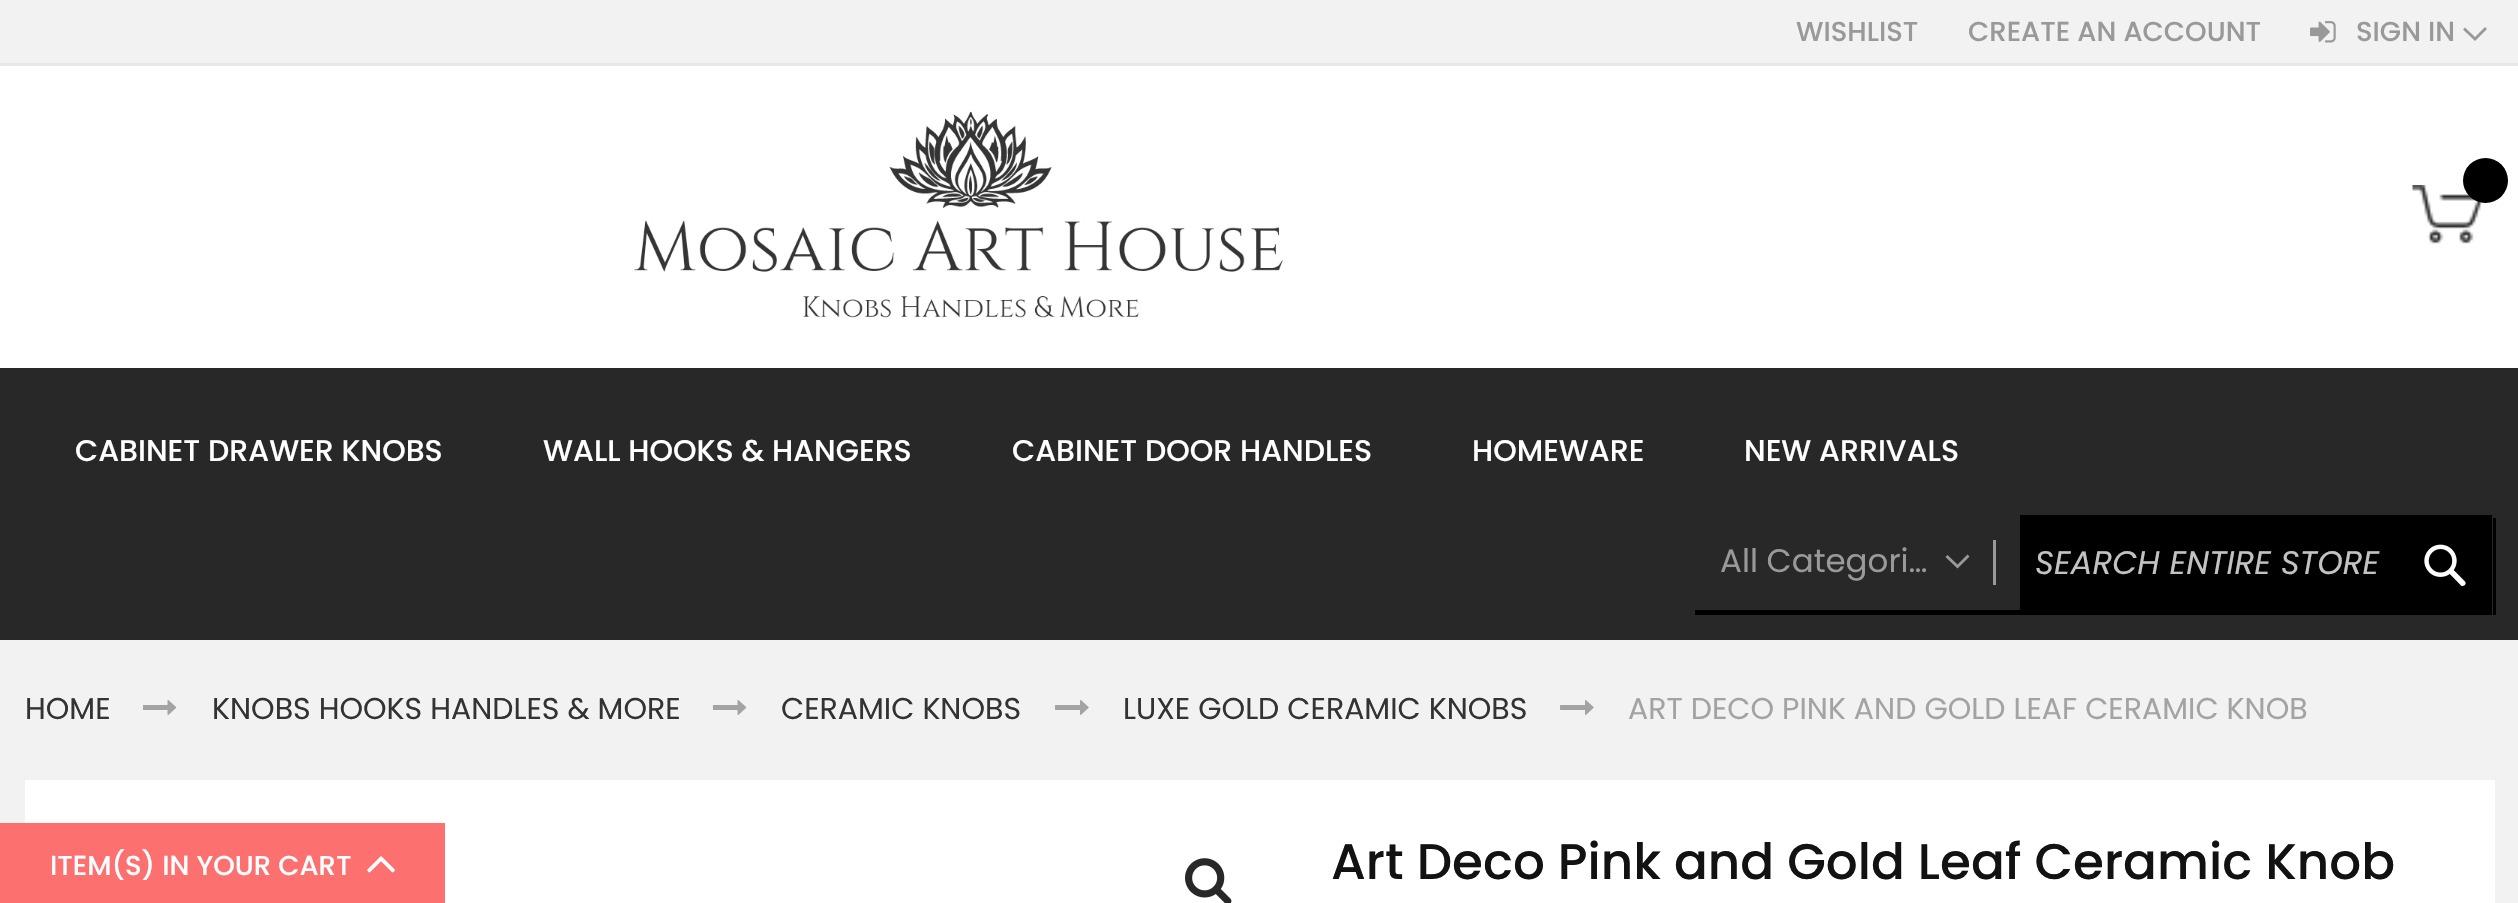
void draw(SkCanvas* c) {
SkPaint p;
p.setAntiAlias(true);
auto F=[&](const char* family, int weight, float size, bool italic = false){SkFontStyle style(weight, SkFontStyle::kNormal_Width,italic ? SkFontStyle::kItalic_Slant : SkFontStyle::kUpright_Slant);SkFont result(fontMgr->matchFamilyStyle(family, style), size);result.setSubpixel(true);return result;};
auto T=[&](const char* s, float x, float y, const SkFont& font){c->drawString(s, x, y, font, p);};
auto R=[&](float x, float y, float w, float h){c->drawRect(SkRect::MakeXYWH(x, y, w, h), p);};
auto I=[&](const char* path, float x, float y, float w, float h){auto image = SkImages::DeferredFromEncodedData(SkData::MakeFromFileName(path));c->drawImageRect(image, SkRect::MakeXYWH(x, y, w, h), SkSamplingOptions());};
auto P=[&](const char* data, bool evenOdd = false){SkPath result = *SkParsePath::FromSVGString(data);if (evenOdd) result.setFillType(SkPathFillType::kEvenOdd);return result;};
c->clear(0xfff2f2f2);
p.setColor(0xffffffff);
R(0,66,2518,302);
p.setColor(0xffe7e7e7);
R(0,63,2518,3);
auto f1 = F("Poppins",500,27.5);
p.setColor(0xff999999);
T("WISHLIST",1796,41,f1);
T("CREATE AN ACCOUNT",1968,41,f1);
I("1.png",2310,21,26,22);
T("SIGN IN",2356,41,f1);
c->drawPath(P("M2475 37l-10-9.5l-2 2l12 11.5l12-12l-2-2z"),p);
I("2.png",634,111,649,207);
I("3.png",2412,185,72,59);
p.setColor(0xff000000);
c->drawCircle(2485.5,180.5,22.5,p);
p.setColor(0xff282828);
R(0,368,2518,272);
auto f2 = F("Poppins",500,30);
p.setColor(0xffffffff);
T("CABINET DRAWER KNOBS",75,461,f2);
T("WALL HOOKS & HANGERS",543,461,f2);
T("CABINET DOOR HANDLES",1012,461,f2);
T("HOMEWARE",1472,461,f2);
T("NEW ARRIVALS",1744,461,f2);
p.setColor(0xff000000);
R(1698,515,794,100);
p.setColor(0xff282828);
R(1698,515,322,95);
auto f3 = F("Poppins",400,32.5);
p.setColor(0xff999999);
T("All Categori…",1720,572,f3);
c->drawPath(P("M1957.5 564.5l-10-9.5l-2 2l12 11.5l12-12l-2-2z"),p);
R(1993,540,3,45);
p.setColor(0xff000000);
R(2493,518,3,97);
R(1695,610,3,5);
auto f4 = F("Poppins",400,32.5,true);
p.setColor(0xffc2c2c2);
T("SEARCH ENTIRE STORE",2035,574,f4);
I("4.png",2424,544,42,42);
auto f5 = F("Poppins",400,30);
p.setColor(0xff333333);
T("HOME",25,719,f5);
I("5.png",143,700,34,15);
T("KNOBS HOOKS HANDLES & MORE",212,719,f5);
I("5.png",713,700,34,15);
T("CERAMIC KNOBS",781,719,f5);
I("6.png",1055,700,34,15);
T("LUXE GOLD CERAMIC KNOBS",1123,719,f5);
I("6.png",1560,700,34,15);
p.setColor(0xffa3a3a3);
T("ART DECO PINK AND GOLD LEAF CERAMIC KNOB",1628,719,f5);
p.setColor(0xffffffff);
R(25,780,2470,123);
p.setColor(0xfffc7070);
R(0,823,445,80);
p.setColor(0xffffffff);
T("ITEM(S) IN YOUR CART",50,875,f1);
I("7.png",367,856,28,17);
I("8.png",1185,858,47,45);
auto f6 = F("Poppins",500,50);
p.setColor(0xff121212);
T("Art Deco Pink and Gold Leaf Ceramic Knob",1331,879,f6);
}
